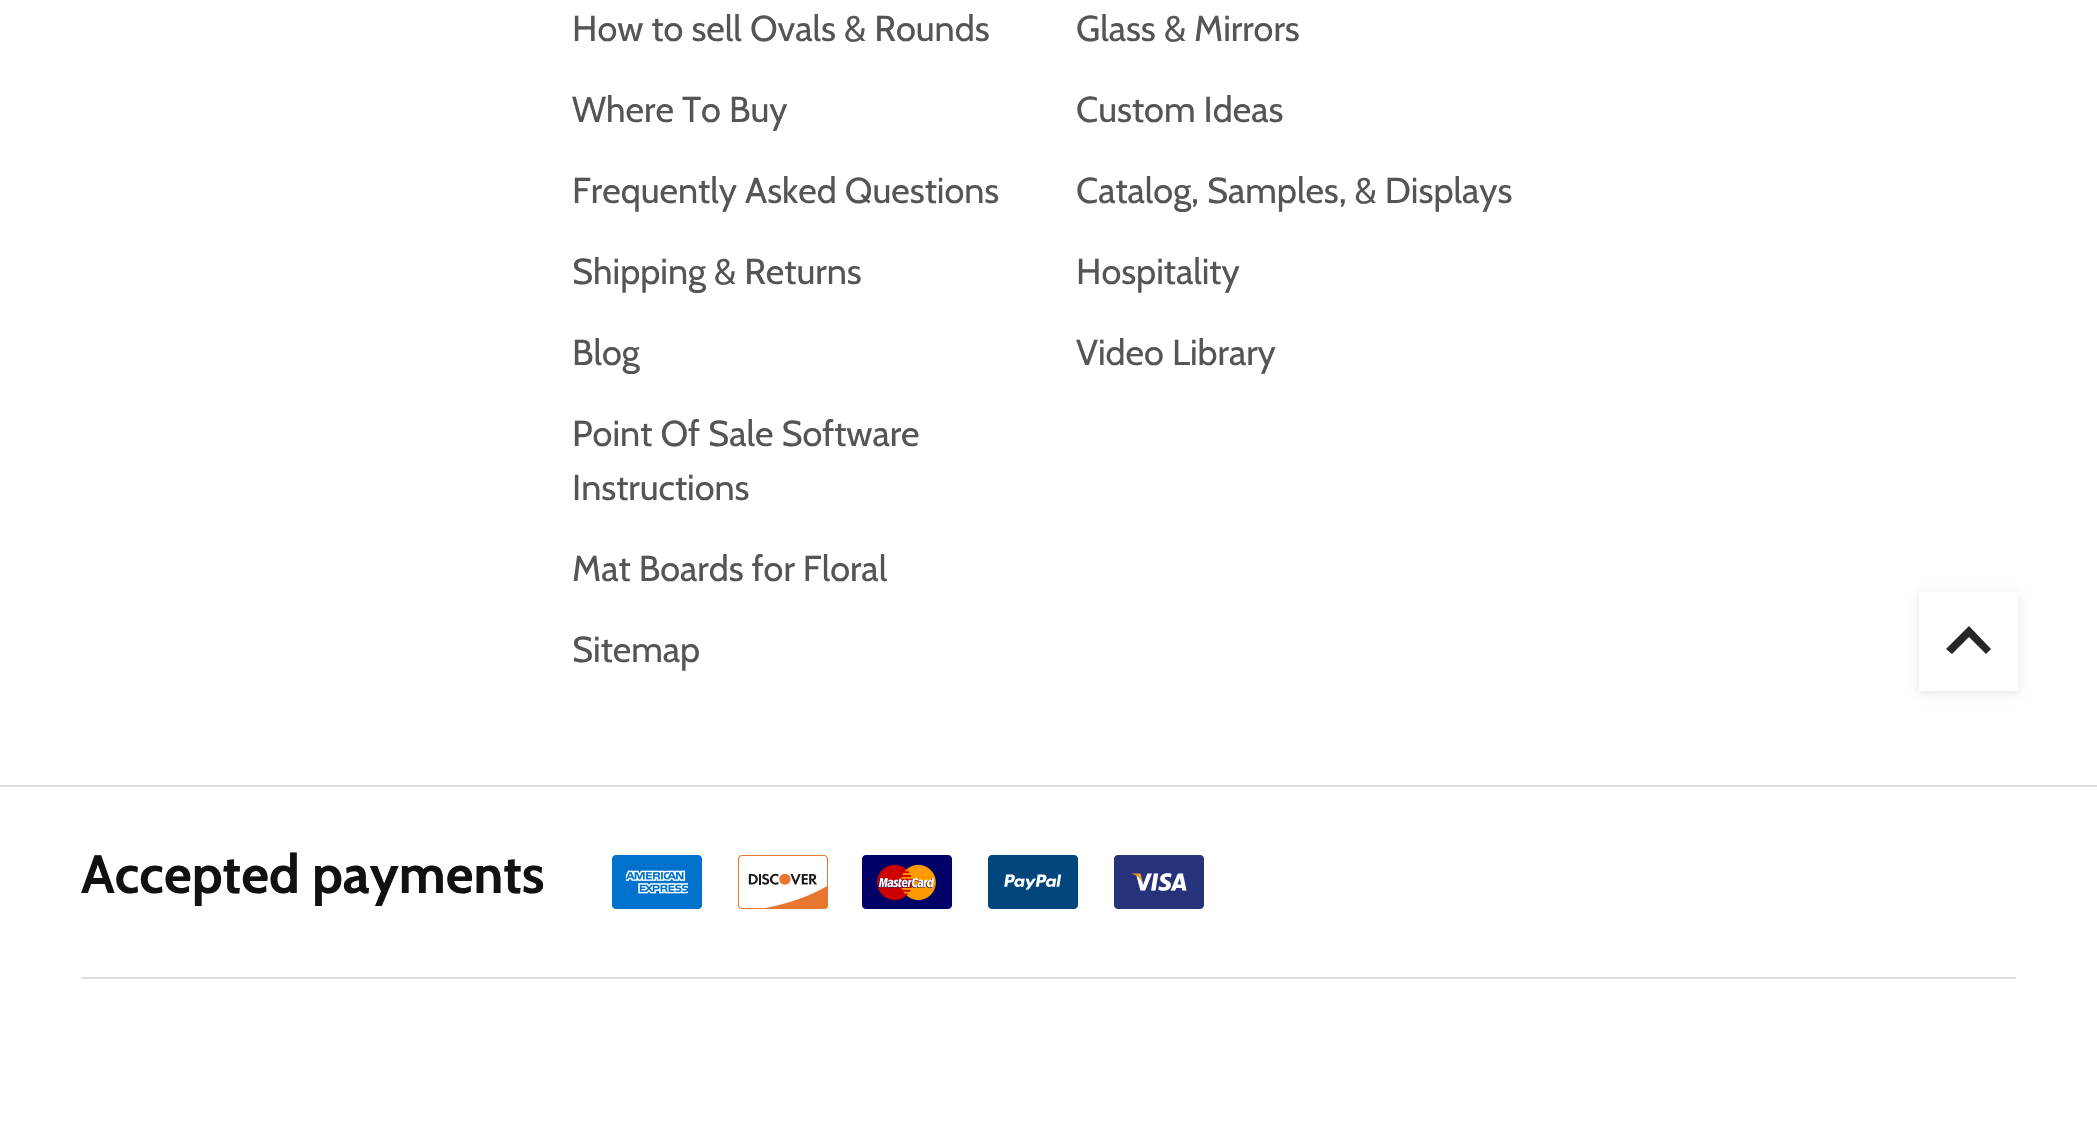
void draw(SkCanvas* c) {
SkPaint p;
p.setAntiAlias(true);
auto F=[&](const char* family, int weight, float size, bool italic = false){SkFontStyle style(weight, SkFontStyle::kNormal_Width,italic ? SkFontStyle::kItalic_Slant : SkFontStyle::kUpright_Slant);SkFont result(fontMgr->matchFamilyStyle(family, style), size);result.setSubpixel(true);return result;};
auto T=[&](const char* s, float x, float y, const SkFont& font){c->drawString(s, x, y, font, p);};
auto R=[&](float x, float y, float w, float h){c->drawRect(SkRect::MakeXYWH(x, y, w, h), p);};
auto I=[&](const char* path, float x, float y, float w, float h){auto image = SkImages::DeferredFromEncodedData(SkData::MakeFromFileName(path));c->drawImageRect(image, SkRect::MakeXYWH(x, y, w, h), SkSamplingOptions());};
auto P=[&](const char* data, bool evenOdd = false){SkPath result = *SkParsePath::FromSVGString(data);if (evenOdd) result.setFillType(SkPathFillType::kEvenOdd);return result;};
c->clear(0xffffffff);
auto f1 = F("Cabin",400,36);
p.setColor(0xff555555);
T("How to sell Ovals & Rounds",572,41,f1);
T("Where To Buy",572,122,f1);
T("Frequently Asked Questions",572,203,f1);
T("Shipping & Returns",572,284,f1);
T("Blog",572,365,f1);
T("Point Of Sale Software",572,446,f1);
T("Instructions",572,500,f1);
T("Mat Boards for Floral",572,581,f1);
T("Sitemap",572,662,f1);
T("Glass & Mirrors",1076,41,f1);
T("Custom Ideas",1076,122,f1);
T("Catalog, Samples, & Displays",1076,203,f1);
T("Hospitality",1076,284,f1);
T("Video Library",1076,365,f1);
p.setColor(0xffdddddd);
R(0,785,2097,2);
auto f2 = F("Cabin",700,54);
p.setColor(0xff111111);
T("Accepted payments",81,893,f2);
I("1.png",612,855,90,54);
I("2.png",738,855,90,54);
I("3.png",862,855,90,54);
I("4.png",988,855,90,54);
I("5.png",1114,855,90,54);
p.setColor(0xffdddddd);
R(81,977,1935,2);
p.setColor(0x1a000000);
p.setMaskFilter(SkMaskFilter::MakeBlur(kNormal_SkBlurStyle, 4.5));
c->drawRect(SkRect::MakeXYWH(1919,594,99,99),p);
p.setMaskFilter(nullptr);
p.setColor(0xffffffff);
R(1919,592,99,99);
p.setColor(0xff262626);
c->drawPath(P("M1952 654l17-17l17 17l5-5l-22-23l-23 23z"),p);
}
